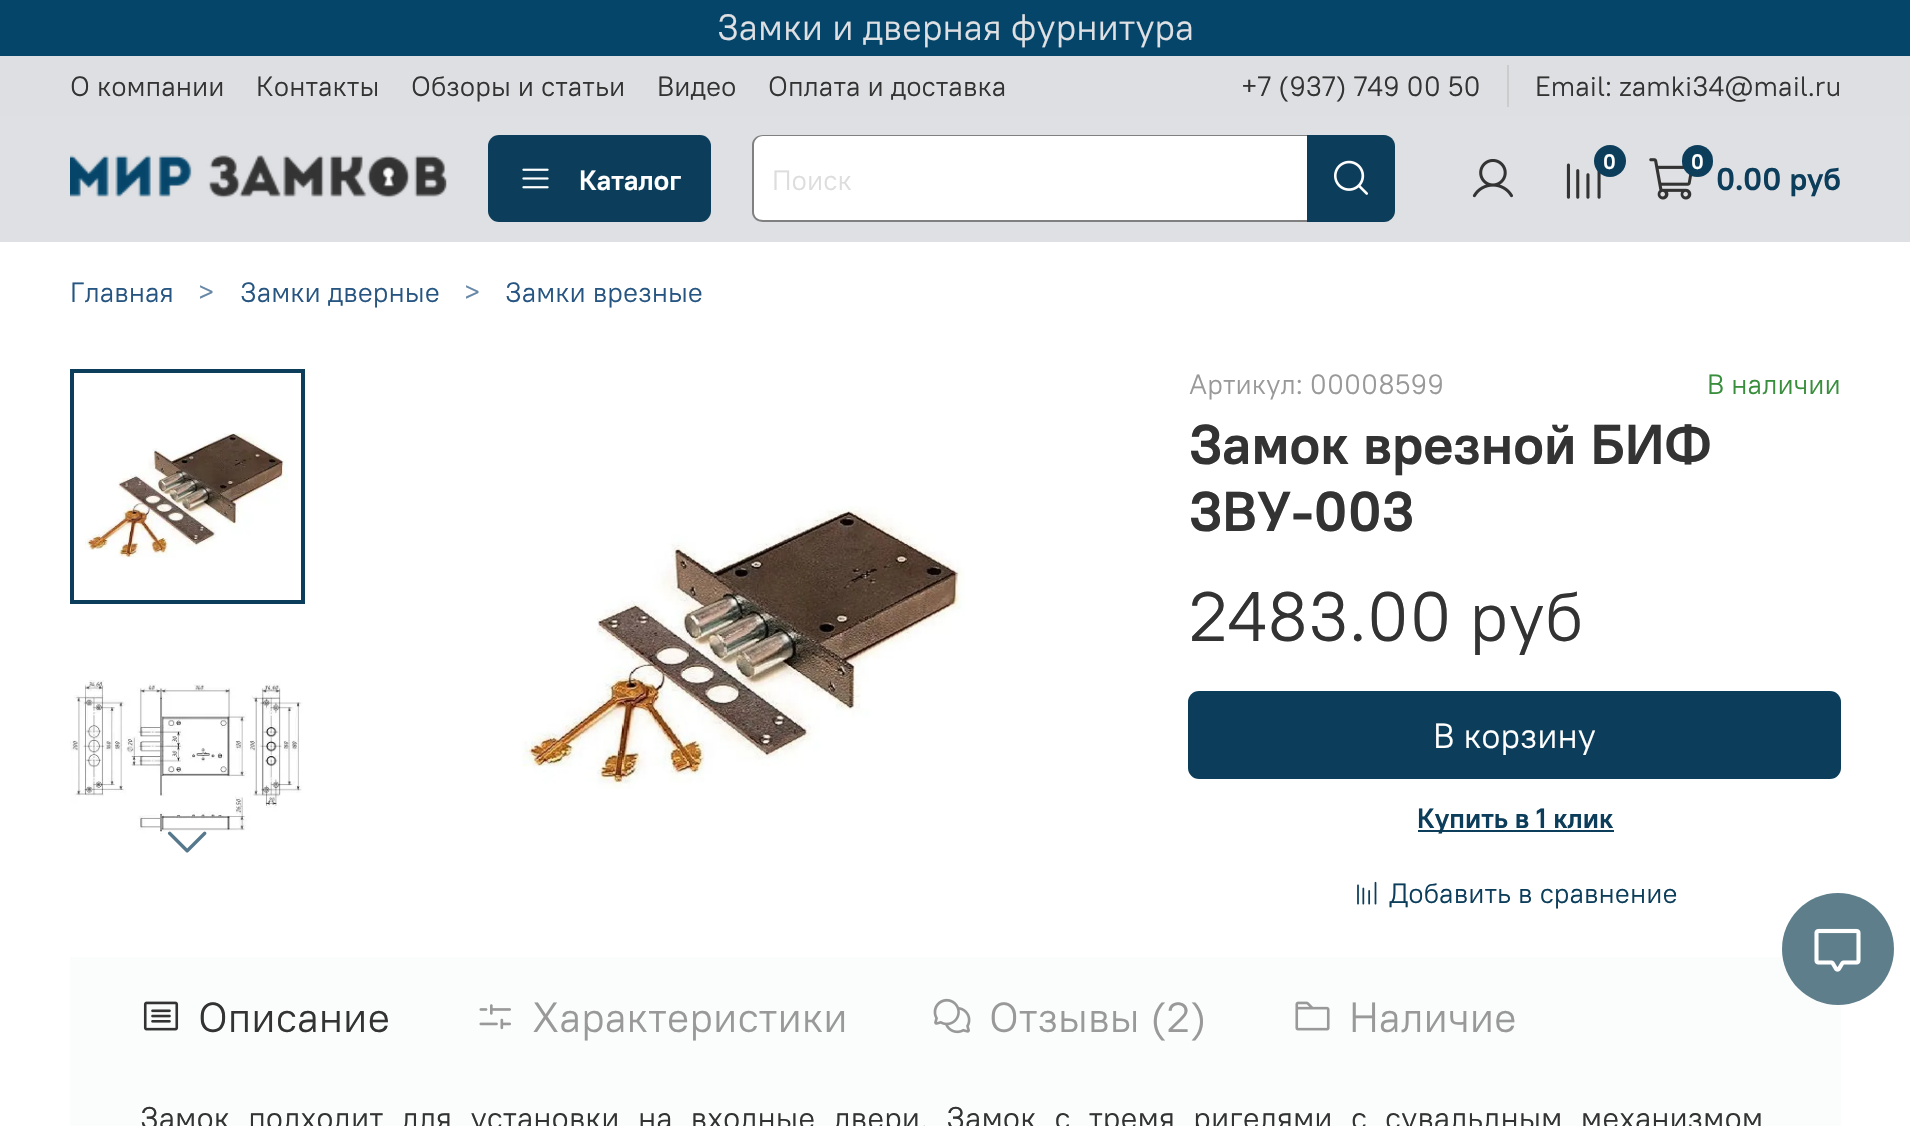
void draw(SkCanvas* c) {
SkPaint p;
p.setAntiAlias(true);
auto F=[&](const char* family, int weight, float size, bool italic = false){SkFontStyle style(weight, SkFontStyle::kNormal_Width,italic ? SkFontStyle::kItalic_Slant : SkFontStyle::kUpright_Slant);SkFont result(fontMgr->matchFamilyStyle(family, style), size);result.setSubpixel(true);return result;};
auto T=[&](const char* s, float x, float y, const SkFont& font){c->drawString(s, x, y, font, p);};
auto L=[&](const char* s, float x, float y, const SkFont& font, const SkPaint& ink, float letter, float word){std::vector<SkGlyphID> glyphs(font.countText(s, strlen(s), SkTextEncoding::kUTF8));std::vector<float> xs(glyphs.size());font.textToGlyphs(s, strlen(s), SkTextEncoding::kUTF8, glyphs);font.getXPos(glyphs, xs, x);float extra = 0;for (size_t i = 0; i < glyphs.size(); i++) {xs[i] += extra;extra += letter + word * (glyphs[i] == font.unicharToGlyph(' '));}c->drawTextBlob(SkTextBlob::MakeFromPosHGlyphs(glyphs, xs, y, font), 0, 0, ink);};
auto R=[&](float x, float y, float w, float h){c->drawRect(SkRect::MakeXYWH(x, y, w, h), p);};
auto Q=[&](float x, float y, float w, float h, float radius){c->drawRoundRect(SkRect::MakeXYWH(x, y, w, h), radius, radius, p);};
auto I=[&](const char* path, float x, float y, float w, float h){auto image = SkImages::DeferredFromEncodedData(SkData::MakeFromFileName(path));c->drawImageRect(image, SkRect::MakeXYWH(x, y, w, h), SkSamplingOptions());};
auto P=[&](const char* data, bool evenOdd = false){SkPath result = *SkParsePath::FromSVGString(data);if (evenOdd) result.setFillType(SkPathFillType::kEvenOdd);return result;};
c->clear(0xffffffff);
p.setColor(0xff054569);
R(0,0,1910,56);
auto f1 = F("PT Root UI",400,36.75);
p.setColor(0xffdee0e3);
T("Замки и дверная фурнитура",717,40,f1);
p.setColor(0xffdddfe2);
R(0,56,1910,60);
auto f2 = F("PT Root UI",400,28);
p.setColor(0xff333333);
T("О компании",70,96,f2);
T("Контакты",256,96,f2);
T("Обзоры и статьи",411,96,f2);
T("Видео",657,96,f2);
T("Оплата и доставка",768,96,f2);
p.setColor(0xffcccccc);
R(1507,65,2,42);
p.setColor(0xff333333);
T("+7 (937) 749 00 50",1241,96,f2);
T("Email: zamki34@mail.ru",1535,96,f2);
p.setColor(0xffdee0e3);
R(0,116,1910,126);
I("1.png",70,155,377,43);
p.setColor(0xff0c3e5b);
Q(488,135,223,87,11);
I("2.png",522,168,27,21);
auto f3 = F("PT Root UI",700,28);
p.setColor(0xffffffff);
T("Каталог",579,190,f3);
c->drawPath(P("M764 135h543v87h-543c-6 0-11-5-11-11v-65c0-6 5-11 11-11z"),p);
p.setColor(0xff808080);
c->drawPath(P("M763 135h544v87h-544c-6 0-11-4-11-10v-67c0-6 5-10 11-10zm0 1h544v84h-544c-5 0-9-3-9-8v-67c0-5 4-9 9-9z",true),p);
p.setColor(0xffdddddd);
T("Поиск",772,190,f2);
p.setColor(0xff0c3e5b);
c->drawPath(P("M1307 135h77c6 0 11 5 11 11v65c0 6-5 11-11 11h-77z"),p);
I("3.png",1334,160,34,35);
I("4.png",1472,159,41,39);
I("5.png",1566,163,35,36);
c->drawCircle(1610,161,16,p);
auto f4 = F("PT Root UI",700,21);
p.setColor(0xffffffff);
T("0",1603,169,f4);
I("6.png",1649,158,43,42);
p.setColor(0xff0c3e5b);
Q(1682,145,31,32,15.5);
p.setColor(0xffffffff);
T("0",1691,169,f4);
auto f5 = F("PT Root UI",700,31.5);
p.setColor(0xff0c3e5b);
T("0.00 руб",1716,190,f5);
p.setColor(0xff265581);
T("Главная",70,302,f2);
p.setColor(0xff6788a7);
T(">",198,302,f2);
p.setColor(0xff265581);
T("Замки дверные",240,302,f2);
p.setColor(0xff6788a7);
T(">",464,302,f2);
p.setColor(0xff265581);
T("Замки врезные",505,302,f2);
I("7.png",85,433,203,125);
p.setStroke(true);
p.setStrokeWidth(4);
p.setColor(0xff0c3e5b);
c->drawRect(SkRect::MakeXYWH(72,371,231,231),p);
I("8.png",70,680,233,154);
I("9.png",167,831,40,22);
I("10.png",522,506,443,283);
p.setStroke(false);
p.setColor(0xff999999);
T("Артикул: 00008599",1189,394,f2);
p.setColor(0xff388e3c);
T("В наличии",1707,394,f2);
auto f6 = F("PT Root UI",700,56);
p.setColor(0xff333333);
T("Замок врезной БИФ",1189,464,f6);
T("ЗВУ-003",1189,531,f6);
auto f7 = F("PT Root UI",400,70);
T("2483.00 руб",1189,641,f7);
p.setColor(0xff0c3e5b);
Q(1188,691,653,88,11);
auto f8 = F("PT Root UI",400,35);
p.setColor(0xffffffff);
T("В корзину",1433,748,f8);
p.setColor(0xff0c3e5b);
R(1418,830,196,2);
T("Купить в 1 клик",1417,828,f3);
I("11.png",1357,881,20,24);
T("Добавить в сравнение",1389,903,f2);
p.setColor(0xfffbfdfd);
R(70,957,1771,169);
I("12.png",143,1001,36,30);
auto f9 = F("PT Root UI",400,42);
p.setColor(0xff333333);
T("Описание",198,1032,f9);
I("13.png",479,1004,32,26);
p.setColor(0xff999999);
T("Характеристики",532,1032,f9);
I("14.png",933,998,38,36);
T("Отзывы (2)",989,1032,f9);
I("15.png",1295,1001,35,30);
T("Наличие",1349,1032,f9);
auto f10 = F("PT Root UI",400,31.5);
p.setColor(0xff333333);
L("Замок подходит для установки на входные двери. Замок с тремя ригелями с сувальдным механизмом",140,1129,f10,p,0,10.4);
p.setColor(0xff5e7e8b);
c->drawCircle(1838,949,56,p);
I("16.png",1814,928,47,44);
}
